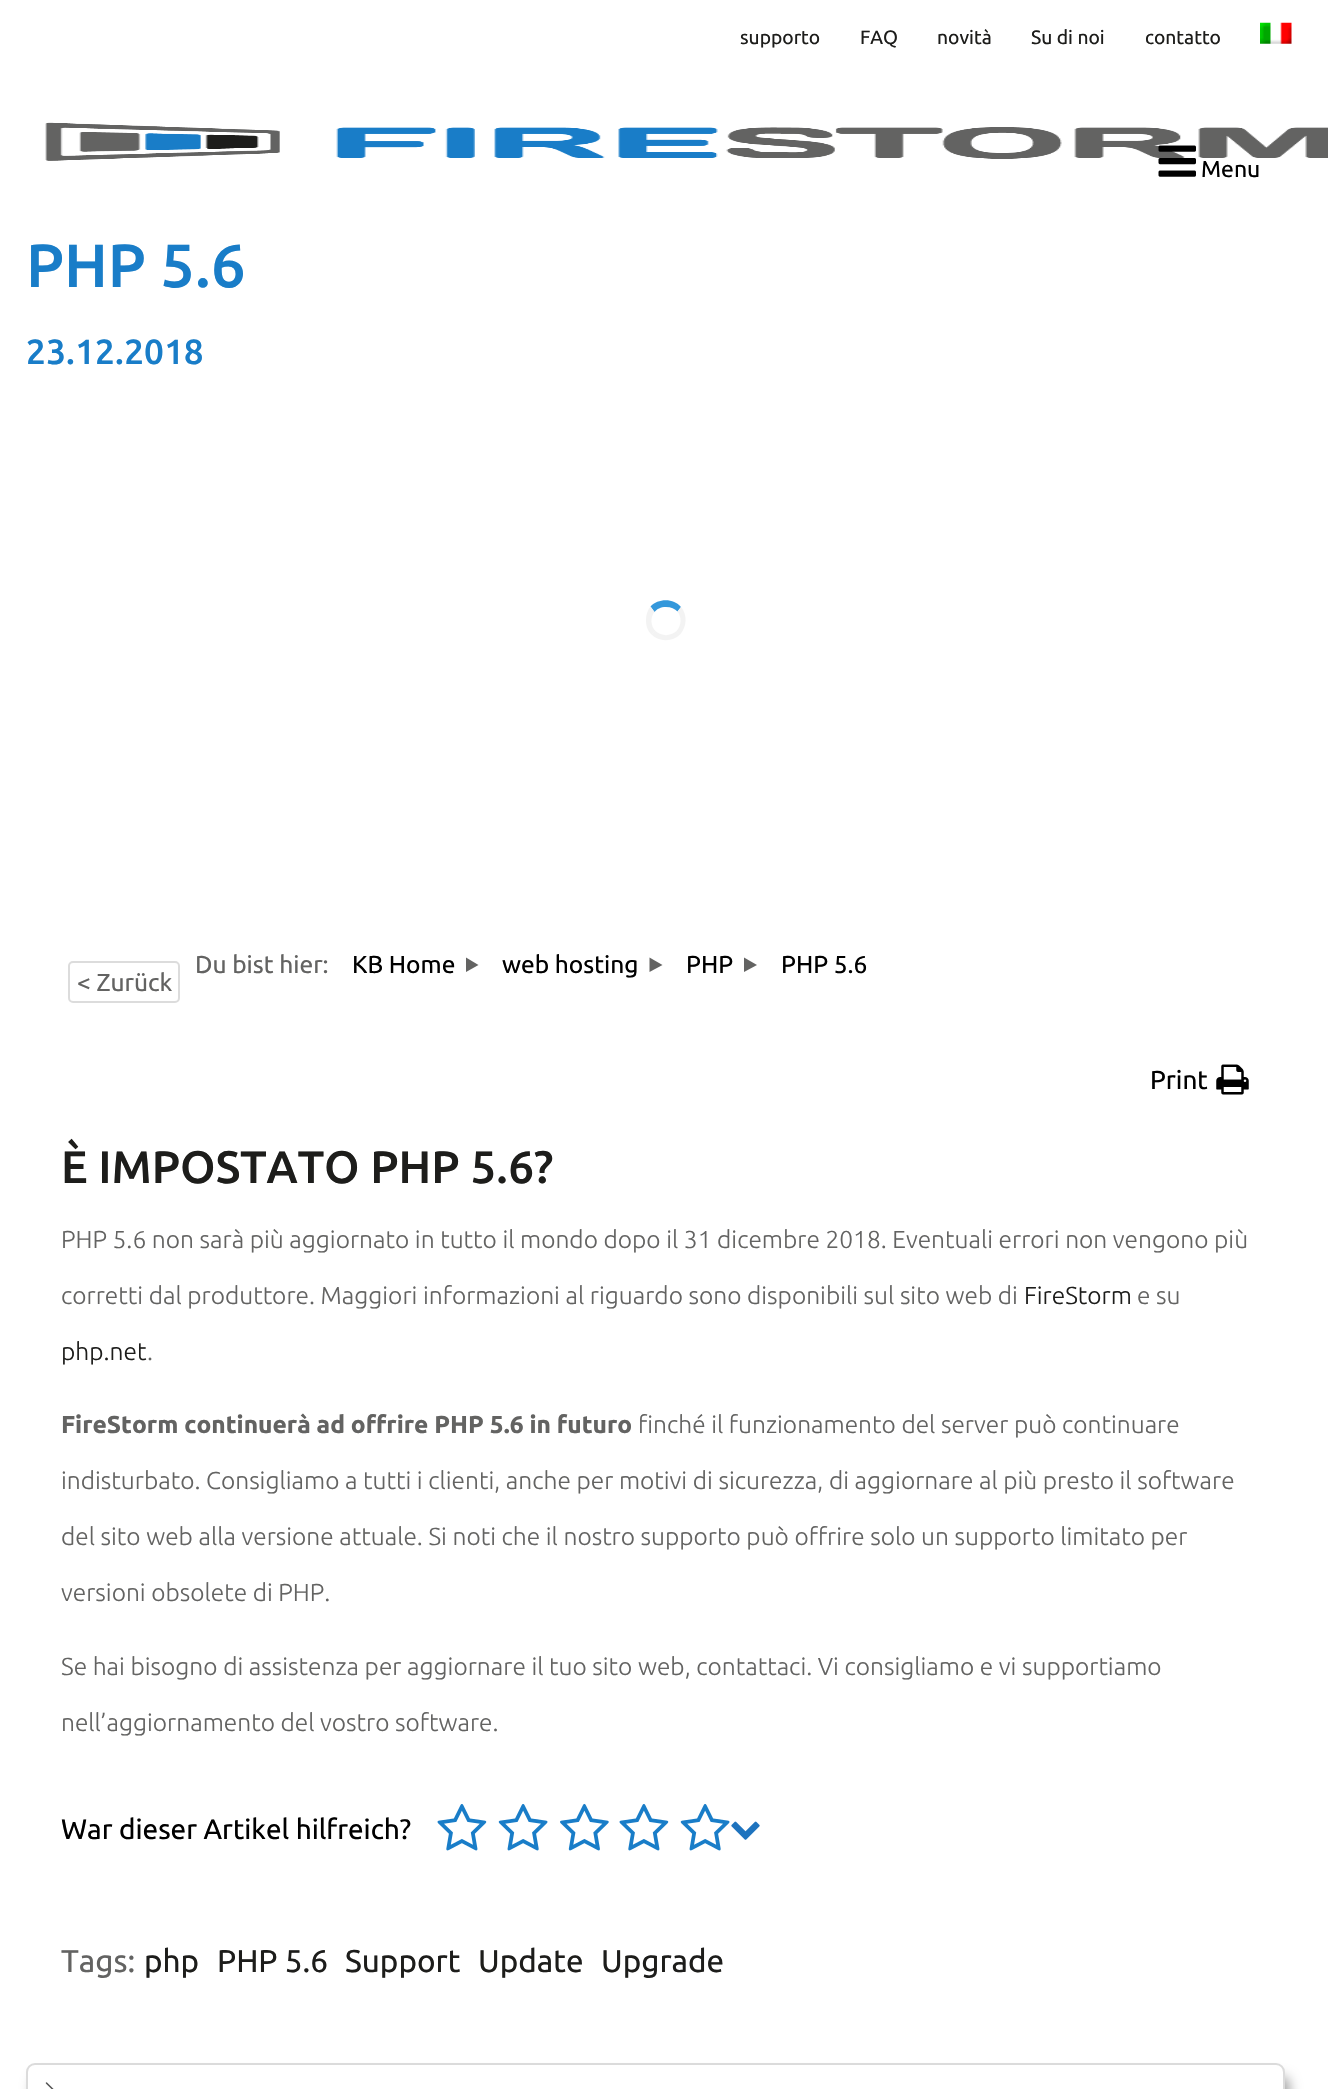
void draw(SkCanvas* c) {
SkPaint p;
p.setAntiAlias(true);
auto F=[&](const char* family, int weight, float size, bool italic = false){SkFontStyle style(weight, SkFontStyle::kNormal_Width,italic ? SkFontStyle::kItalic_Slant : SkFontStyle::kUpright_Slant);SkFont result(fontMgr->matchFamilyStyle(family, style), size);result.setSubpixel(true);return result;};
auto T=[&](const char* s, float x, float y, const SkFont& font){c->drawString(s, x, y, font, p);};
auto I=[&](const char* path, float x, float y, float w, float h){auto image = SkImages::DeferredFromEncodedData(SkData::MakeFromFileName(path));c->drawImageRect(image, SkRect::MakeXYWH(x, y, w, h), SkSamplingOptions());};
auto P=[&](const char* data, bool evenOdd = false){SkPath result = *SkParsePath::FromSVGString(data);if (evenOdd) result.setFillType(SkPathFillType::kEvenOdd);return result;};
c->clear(0xffffffff);
auto f1 = F("Ubuntu",400,19.25);
p.setColor(0xff1d1d1b);
T("supporto",740,44,f1);
T("FAQ",860,44,f1);
T("novità",937,44,f1);
T("Su di noi",1031,44,f1);
T("contatto",1145,44,f1);
I("1.png",1260,22,32,22);
I("2.png",45,122,1283,39);
I("3.png",1158,145,38,32);
auto f2 = F("Ubuntu",400,23);
p.setColor(0xff000000);
T("Menu",1201,177,f2);
auto f3 = F("Ubuntu",500,61);
p.setColor(0xff197dc8);
T("PHP 5.6",26,287,f3);
auto f4 = F("Ubuntu",500,35);
T("23.12.2018",26,364,f4);
p.setColor(0xff3498db);
c->drawPath(P("M666 607c-5.5 0-9 2-11.5 5l-4-5.5c7.5-8.5 23.5-8.5 30.5 .5l-3.5 4.5c-2.5-2.5-6.5-4.5-11.5-4.5z"),p);
p.setColor(0xfff3f3f3);
c->drawPath(P("M681 607c6.5 7.5 6 20-1 27.5l-3.5-3.5c5-5 5.5-14 1-19.5z"),p);
c->drawPath(P("M680 634.5c-7.5 7.5-21 7.5-28.5 0l4-3.5c5.5 5.5 15.5 5.5 21 0z"),p);
c->drawPath(P("M646 620c0-5 1.5-9.5 4.5-13.5l4 5.5c-4.5 5-4 14 1 19l-4 3.5c-4-3.5-5.5-9-5.5-14.5z"),p);
auto f5 = F("Ubuntu",400,24.5);
p.setColor(0xff636362);
T("Du bist hier:",195,973,f5);
p.setColor(0xff000000);
T("KB Home",352,973,f5);
p.setColor(0xff636362);
c->drawPath(P("M466 957.5l12.5 7.5l-12.5 7z"),p);
p.setColor(0xff000000);
T("web hosting",502,973,f5);
p.setColor(0xff636362);
c->drawPath(P("M649.5 957.5l13 7.5l-13 7z"),p);
p.setColor(0xff000000);
T("PHP",686,973,f5);
p.setColor(0xff636362);
c->drawPath(P("M744 957.5l13 7.5l-13 7z"),p);
p.setColor(0xff000000);
T("PHP 5.6",781,973,f5);
p.setStroke(true);
p.setStrokeWidth(2);
p.setColor(0xffdcdcdc);
c->drawRoundRect(SkRect::MakeXYWH(69,962,110,40),4,4,p);
p.setStroke(false);
p.setColor(0xff636362);
T("< Zurück",77,991,f5);
auto f6 = F("Ubuntu",400,26);
p.setColor(0xff000000);
T("Print",1150,1089,f6);
I("4.png",1216,1064,33,31);
auto f7 = F("Ubuntu",500,45.5);
p.setColor(0xff1d1d1b);
T("È IMPOSTATO PHP 5.6?",61,1183,f7);
auto f8 = F("Ubuntu",300,24.5);
p.setColor(0xff636362);
T("PHP 5.6 non sarà più aggiornato in tutto il mondo dopo il 31 dicembre 2018. Eventuali errori non vengono più",61,1248,f8);
T("corretti dal produttore. Maggiori informazioni al riguardo sono disponibili sul sito web di",61,1304,f8);
p.setColor(0xff1d1d1b);
T("FireStorm",1024,1304,f8);
p.setColor(0xff636362);
T("e su",1137,1304,f8);
p.setColor(0xff1d1d1b);
T("php.net",61,1360,f8);
p.setColor(0xff636362);
T(".",147,1360,f8);
auto f9 = F("Ubuntu",700,24.5);
T("FireStorm continuerà ad offrire PHP 5.6 in futuro",61,1433,f9);
T("finché il funzionamento del server può continuare",638,1433,f8);
T("indisturbato. Consigliamo a tutti i clienti, anche per motivi di sicurezza, di aggiornare al più presto il software",61,1489,f8);
T("del sito web alla versione attuale. Si noti che il nostro supporto può offrire solo un supporto limitato per",61,1545,f8);
T("versioni obsolete di PHP.",61,1601,f8);
T("Se hai bisogno di assistenza per aggiornare il tuo sito web, contattaci. Vi consigliamo e vi supportiamo",61,1675,f8);
T("nell’aggiornamento del vostro software.",61,1731,f8);
auto f10 = F("Ubuntu",400,28);
p.setColor(0xff000000);
T("War dieser Artikel hilfreich?",61,1839,f10);
I("5.png",437,1804,50,47);
I("6.png",498,1804,50,47);
I("7.png",560,1803,49,48);
I("8.png",619,1804,50,47);
I("9.png",680,1804,50,47);
I("10.png",731,1821,29,19);
auto f11 = F("Ubuntu",400,31.5);
p.setColor(0xff636362);
T("Tags:",61,1972,f11);
p.setColor(0xff1d1d1b);
T("php",144,1972,f11);
T("PHP 5.6",217,1972,f11);
T("Support",345,1972,f11);
T("Update",478,1972,f11);
T("Upgrade",601,1972,f11);
p.setColor(0x57000000);
p.setMaskFilter(SkMaskFilter::MakeBlur(kNormal_SkBlurStyle, 6));
c->drawRoundRect(SkRect::MakeXYWH(32,2076,1258,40),9,9,p);
p.setMaskFilter(nullptr);
p.setColor(0xffffffff);
c->drawRoundRect(SkRect::MakeXYWH(27,2064,1257,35),8,8,p);
p.setStroke(true);
p.setColor(0xffdbdbdb);
c->drawRoundRect(SkRect::MakeXYWH(27,2064,1257,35),8,8,p);
I("11.png",45,2082,9,7);
}
